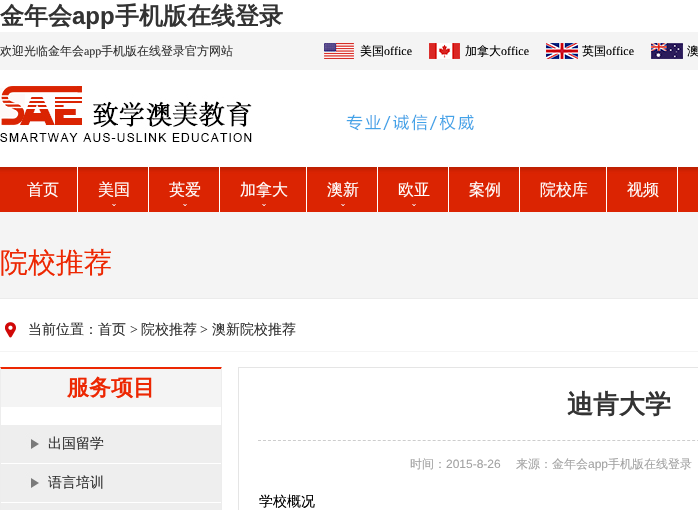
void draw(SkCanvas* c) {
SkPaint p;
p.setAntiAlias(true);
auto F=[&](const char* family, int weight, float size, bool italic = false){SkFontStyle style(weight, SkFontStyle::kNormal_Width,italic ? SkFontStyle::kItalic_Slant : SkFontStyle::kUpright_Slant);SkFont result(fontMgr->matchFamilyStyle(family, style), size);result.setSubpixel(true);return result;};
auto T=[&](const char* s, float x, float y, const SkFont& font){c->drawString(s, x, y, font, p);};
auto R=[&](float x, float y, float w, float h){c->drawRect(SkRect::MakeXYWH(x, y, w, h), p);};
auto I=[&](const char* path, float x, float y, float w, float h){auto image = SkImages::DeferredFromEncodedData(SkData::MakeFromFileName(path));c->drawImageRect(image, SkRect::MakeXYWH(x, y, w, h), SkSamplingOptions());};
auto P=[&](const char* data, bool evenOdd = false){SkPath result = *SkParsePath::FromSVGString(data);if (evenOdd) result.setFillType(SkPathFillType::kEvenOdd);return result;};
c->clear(0xffffffff);
auto f1 = F("WenQuanYi Zen Hei",700,24);
p.setColor(0xff333333);
T("金年会",0,24,f1);
auto f2 = F("Liberation Sans",700,24);
T("app",72,24,f2);
T("手机版在线登录",115,24,f1);
p.setColor(0xfff4f4f4);
R(0,32,698,38);
auto f3 = F("WenQuanYi Zen Hei",500,12);
p.setColor(0xff333333);
T("欢迎光临金年会",0,55,f3);
auto f4 = F("Liberation Serif",400,12);
T("app",84,55,f4);
T("手机版在线登录官方网站",101,55,f3);
I("1.png",324,43,30,16);
p.setColor(0xff000000);
T("美国",360,55,f3);
T("office",384,55,f4);
I("2.png",429,43,31,16);
T("加拿大",465,55,f3);
T("office",501,55,f4);
I("3.png",546,43,32,16);
T("英国",582,55,f3);
T("office",606,55,f4);
I("4.png",651,43,32,16);
T("澳",687,55,f3);
I("5.png",0,86,252,56);
I("6.png",346,114,128,17);
I("7.png",0,167,698,45);
p.setColor(0xffffffff);
R(77,167,1,45);
auto f5 = F("WenQuanYi Zen Hei",500,16);
T("首页",27,195,f5);
I("8.png",112,204,4,2);
R(148,167,1,45);
T("美国",98,195,f5);
I("8.png",183,204,4,2);
R(219,167,1,45);
T("英爱",169,195,f5);
I("8.png",262,204,4,2);
R(306,167,1,45);
T("加拿大",240,195,f5);
I("8.png",341,204,4,2);
R(377,167,1,45);
T("澳新",327,195,f5);
I("8.png",412,204,4,2);
R(448,167,1,45);
T("欧亚",398,195,f5);
R(519,167,1,45);
T("案例",469,195,f5);
R(606,167,1,45);
T("院校库",540,195,f5);
R(677,167,1,45);
T("视频",627,195,f5);
p.setColor(0xfff4f4f4);
R(0,212,698,86);
p.setColor(0xffebebeb);
R(0,298,698,1);
auto f6 = F("WenQuanYi Zen Hei",500,28);
p.setColor(0xffed2702);
T("院校推荐",0,272,f6);
I("9.png",5,322,11,16);
p.setColor(0xfff4f4f4);
R(0,351,698,1);
auto f7 = F("WenQuanYi Zen Hei",500,14);
p.setColor(0xff333333);
T("当前位置：首页",28,334,f7);
auto f8 = F("Liberation Serif",400,14);
T(">",130,334,f8);
T("院校推荐",141,334,f7);
T(">",200,334,f8);
T("澳新院校推荐",212,334,f7);
p.setColor(0xffec2702);
c->drawPath(P("M0 367h222l-1 2h-220z"),p);
p.setColor(0xffededed);
c->drawPath(P("M222 367v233l-1-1v-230z"),p);
c->drawPath(P("M0 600v-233l1 2v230z"),p);
p.setColor(0xfff4f4f4);
R(1,369,220,38);
auto f9 = F("WenQuanYi Zen Hei",700,22);
p.setColor(0xffed2702);
T("服务项目",67,395,f9);
I("10.png",1,425,220,38);
p.setColor(0xff333333);
T("出国留学",48,448,f7);
I("10.png",1,464,220,38);
T("语言培训",48,487,f7);
p.setColor(0xffeeeeee);
R(1,503,220,7);
p.setStroke(true);
p.setStrokeWidth(1);
p.setColor(0xffe5e5e5);
c->drawRect(SkRect::MakeXYWH(238.5,367.5,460,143),p);
p.setColor(0xffcdcdcd);
p.setPathEffect(SkDashPathEffect::Make({{3,1.99f}}, 0));
c->drawPath(P("M258 440.5h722"),p);
p.setPathEffect(nullptr);
auto f10 = F("WenQuanYi Zen Hei",700,26);
p.setStroke(false);
p.setColor(0xff333333);
T("迪肯大学",567,413,f10);
p.setColor(0xffa3a3a3);
T("时间：",410,468,f3);
auto f11 = F("Liberation Sans",400,12);
T("2015-8-26",446,468,f11);
T("来源：金年会",516,468,f3);
T("app",588,468,f11);
T("手机版在线登录",608,468,f3);
p.setColor(0xff000000);
T("学校概况",259,506,f7);
}
